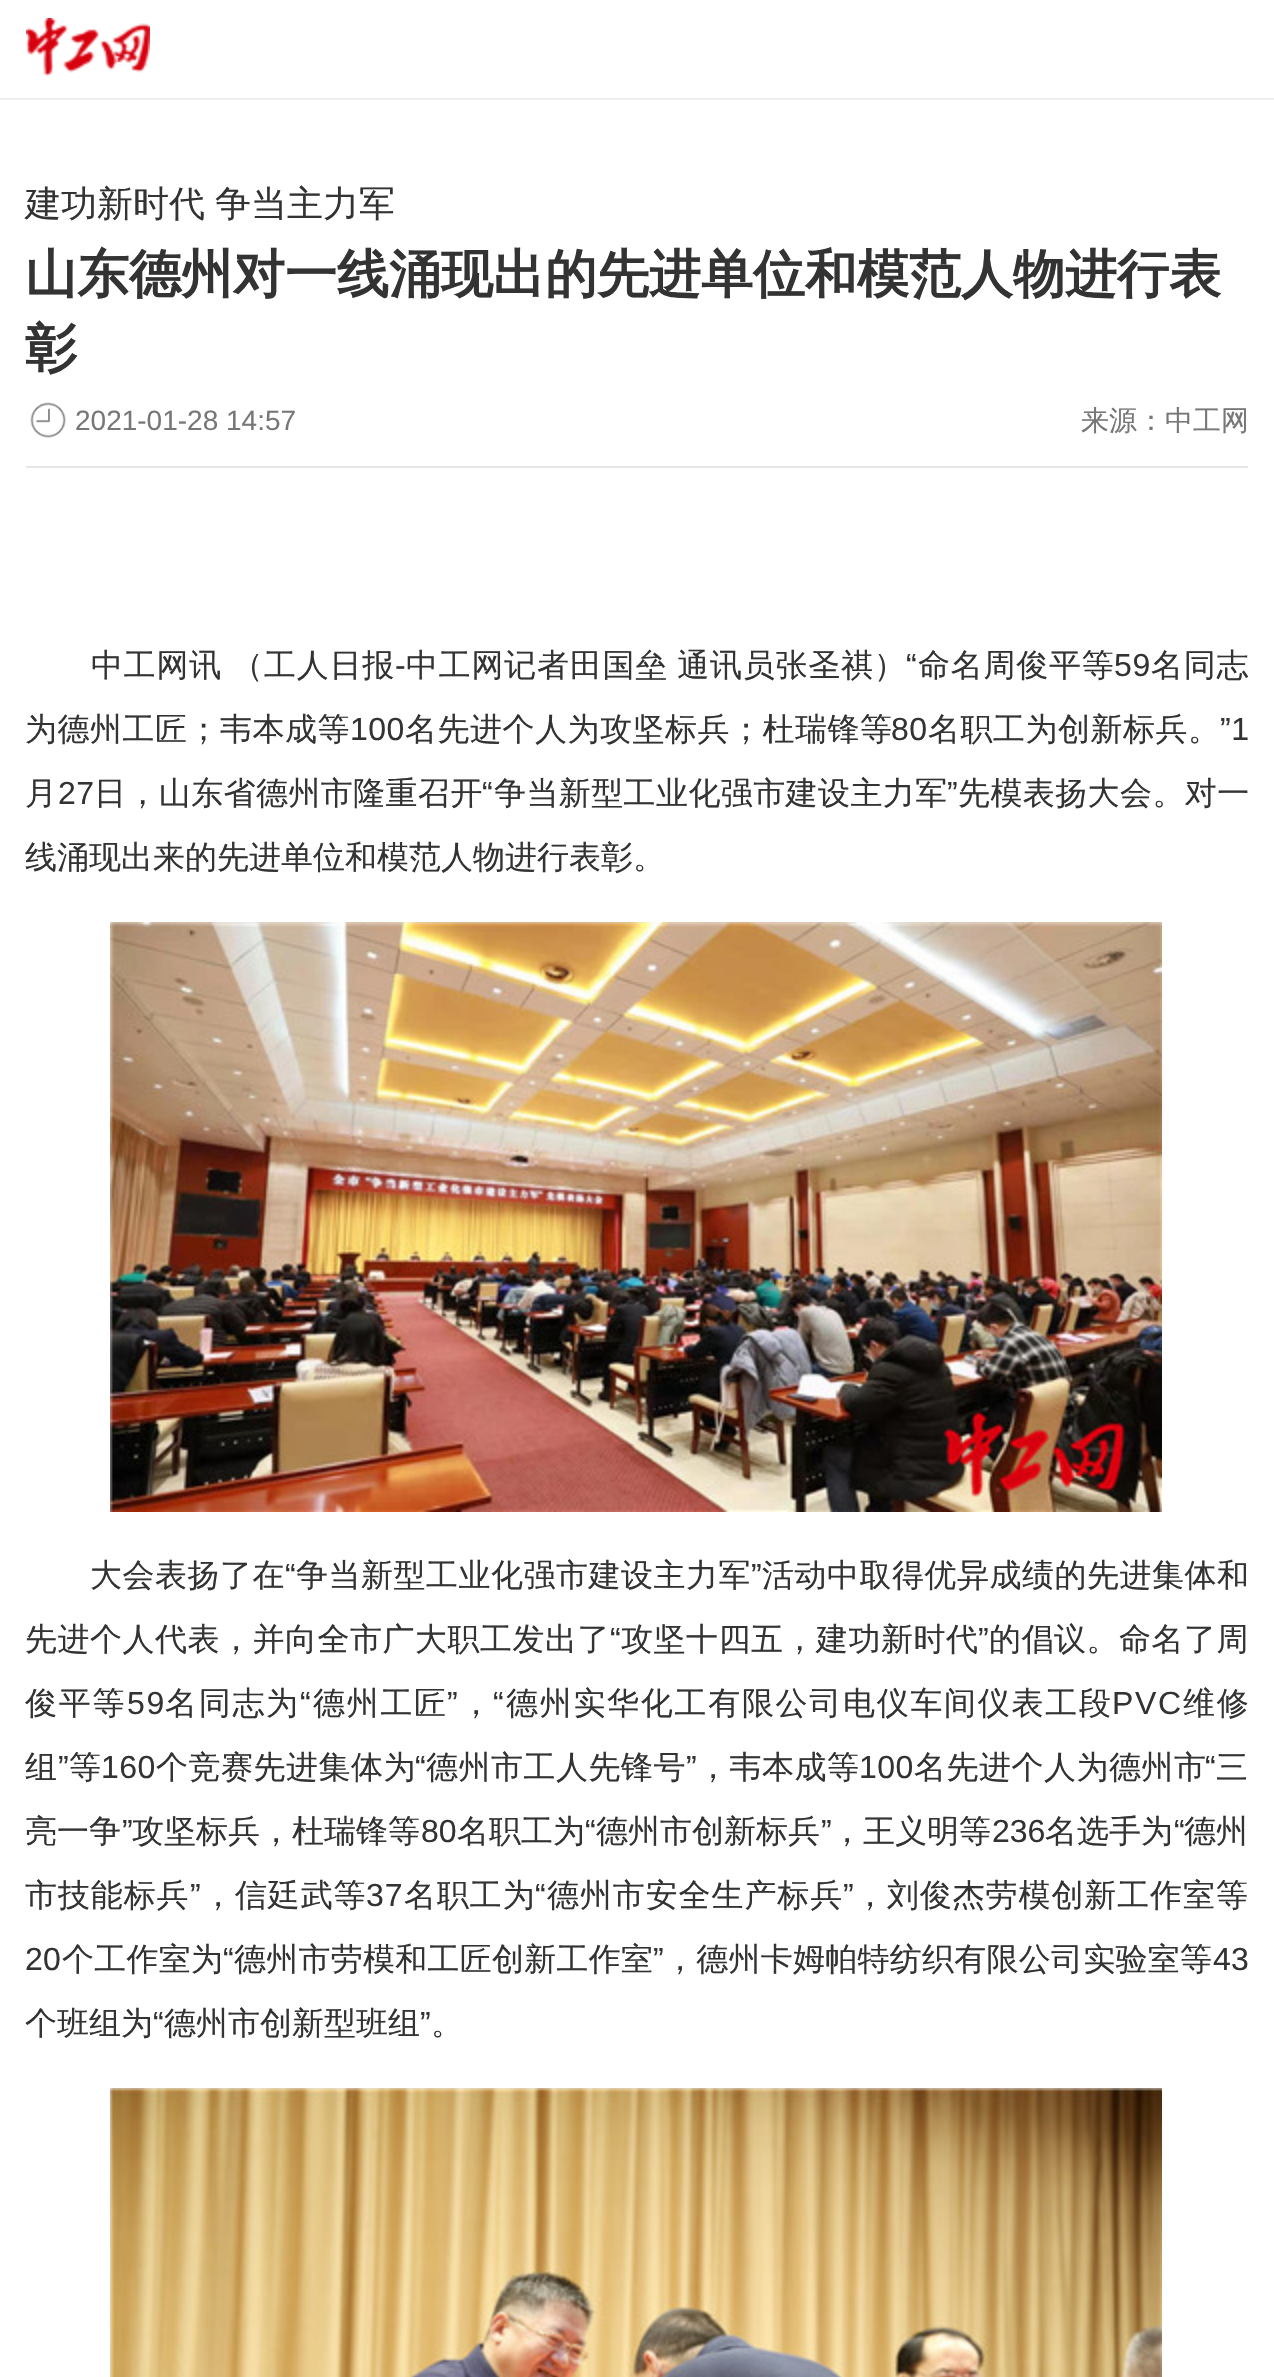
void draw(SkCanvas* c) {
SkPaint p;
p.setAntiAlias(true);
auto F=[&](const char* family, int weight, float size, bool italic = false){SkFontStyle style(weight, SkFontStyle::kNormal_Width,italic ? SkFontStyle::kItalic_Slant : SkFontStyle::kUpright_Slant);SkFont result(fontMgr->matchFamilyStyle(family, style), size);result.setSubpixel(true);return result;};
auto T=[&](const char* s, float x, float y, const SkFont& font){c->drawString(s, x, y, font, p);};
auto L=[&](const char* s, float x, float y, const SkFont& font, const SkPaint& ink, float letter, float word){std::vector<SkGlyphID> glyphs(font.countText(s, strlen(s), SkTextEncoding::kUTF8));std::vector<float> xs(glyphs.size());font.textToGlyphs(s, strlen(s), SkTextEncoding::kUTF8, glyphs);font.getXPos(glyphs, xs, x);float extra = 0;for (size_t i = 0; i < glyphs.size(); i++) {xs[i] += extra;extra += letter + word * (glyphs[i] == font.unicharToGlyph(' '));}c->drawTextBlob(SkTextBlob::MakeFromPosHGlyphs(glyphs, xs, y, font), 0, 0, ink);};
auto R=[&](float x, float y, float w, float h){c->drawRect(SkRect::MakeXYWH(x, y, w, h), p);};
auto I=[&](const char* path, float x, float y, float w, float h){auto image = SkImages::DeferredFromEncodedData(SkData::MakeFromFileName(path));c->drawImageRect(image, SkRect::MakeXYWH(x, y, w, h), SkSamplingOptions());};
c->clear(0xffffffff);
p.setColor(0xffeeeeee);
R(0,98,1274,2);
I("1.png",26,18,124,59);
p.setColor(0xffe6e6e6);
R(26,466,1222,2);
auto f1 = F("WenQuanYi Zen Hei",500,36);
p.setColor(0xff333333);
T("建功新时代",25,216,f1);
T("争当主力军",215,216,f1);
auto f2 = F("WenQuanYi Zen Hei",700,52);
T("山东德州对一线涌现出的先进单位和模范人物进行表",25,292,f2);
T("彰",25,366,f2);
I("2.png",30,402,36,36);
auto f3 = F("Liberation Sans",400,28);
p.setColor(0xff777777);
T("2021-01-28 14:57",75,430,f3);
auto f4 = F("WenQuanYi Zen Hei",500,28);
T("来源：中工网",1081,430,f4);
auto f5 = F("WenQuanYi Zen Hei",500,32);
p.setColor(0xff333333);
L("中工网讯 （工人日报",91,676,f5,p,.75,-1);
L("中工网记者田国垒 通讯员张圣祺）",406,676,f5,p,.75,-1);
auto f6 = F("Liberation Sans",400,32);
L("“",906,676,f6,p,.75,0);
L("命名周俊平等",918,676,f5,p,.75,0);
L("59",1114,676,f6,p,.75,0);
L("名同志",1151,676,f5,p,.75,0);
L("-",395,676,f6,p,.75,0);
L("为德州工匠；韦本成等",25,740,f5,p,.5,0);
L("100",350,740,f6,p,.5,0);
L("名先进个人为攻坚标兵；杜瑞锋等",405,740,f5,p,.5,0);
L("80",891,740,f6,p,.5,0);
L("名职工为创新标兵。",928,740,f5,p,.5,0);
L("”1",1220,740,f6,p,.5,0);
L("月",25,804,f5,p,.4,0);
L("27",58,804,f6,p,.4,0);
L("日，山东省德州市隆重召开",94,804,f5,p,.4,0);
L("“",482,804,f6,p,.4,0);
L("争当新型工业化强市建设主力军",494,804,f5,p,.4,0);
L("”",947,804,f6,p,.4,0);
L("先模表扬大会。对一",958,804,f5,p,.4,0);
T("线涌现出来的先进单位和模范人物进行表彰。",25,868,f5);
I("3.png",110,922,1052,590);
L("大会表扬了在",90,1586,f5,p,.5,0);
L("“",285,1586,f6,p,.5,0);
L("争当新型工业化强市建设主力军",296,1586,f5,p,.5,0);
L("”",751,1586,f6,p,.5,0);
L("活动中取得优异成绩的先进集体和",762,1586,f5,p,.5,0);
L("先进个人代表，并向全市广大职工发出了",25,1650,f5,p,.5,0);
L("“",610,1650,f6,p,.5,0);
L("攻坚十四五，建功新时代",621,1650,f5,p,.5,0);
L("”",978,1650,f6,p,.5,0);
L("的倡议。命名了周",989,1650,f5,p,.5,0);
L("俊平等",25,1714,f5,p,1.7,0);
L("59",127,1714,f6,p,1.7,0);
L("名同志为",165,1714,f5,p,1.7,0);
L("“",300,1714,f6,p,1.7,0);
L("德州工匠",313,1714,f5,p,1.7,0);
L("”",447,1714,f6,p,1.7,0);
L("“",493,1714,f6,p,1.7,0);
L("德州实华化工有限公司电仪车间仪表工段",506,1714,f5,p,1.7,0);
L("PVC",1112,1714,f6,p,1.7,0);
L("维修",1183,1714,f5,p,1.7,0);
L("，",460,1714,f5,p,1.7,0);
L("组",25,1778,f5,p,.5,0);
L("”",58,1778,f6,p,.5,0);
L("等",69,1778,f5,p,.5,0);
L("160",101,1778,f6,p,.5,0);
L("个竞赛先进集体为",156,1778,f5,p,.5,0);
L("“",415,1778,f6,p,.5,0);
L("德州市工人先锋号",426,1778,f5,p,.5,0);
L("”",686,1778,f6,p,.5,0);
L("，韦本成等",697,1778,f5,p,.5,0);
L("100",859,1778,f6,p,.5,0);
L("名先进个人为德州市",914,1778,f5,p,.5,0);
L("“",1205,1778,f6,p,.5,0);
L("三",1216,1778,f5,p,.5,0);
T("亮一争",25,1842,f5);
T("”",122,1842,f6);
T("攻坚标兵，杜瑞锋等",132,1842,f5);
T("80",421,1842,f6);
T("名职工为",457,1842,f5);
T("“",585,1842,f6);
T("德州市创新标兵",596,1842,f5);
T("”",821,1842,f6);
T("，王义明等",831,1842,f5);
T("236",992,1842,f6);
T("名选手为",1045,1842,f5);
T("“",1174,1842,f6);
T("德州",1184,1842,f5);
L("市技能标兵",25,1906,f5,p,.9,0);
L("”",190,1906,f6,p,.9,0);
L("，信廷武等",202,1906,f5,p,.9,0);
L("37",366,1906,f6,p,.9,0);
L("名职工为",404,1906,f5,p,.9,0);
L("“",535,1906,f6,p,.9,0);
L("德州市安全生产标兵",547,1906,f5,p,.9,0);
L("”",843,1906,f6,p,.9,0);
L("，刘俊杰劳模创新工作室等",854,1906,f5,p,.9,0);
L("20",25,1970,f6,p,.25,0);
L("个工作室为",62,1970,f5,p,.25,0);
L("“",223,1970,f6,p,.25,0);
L("德州市劳模和工匠创新工作室",234,1970,f5,p,.25,0);
L("”",653,1970,f6,p,.25,0);
L("，德州卡姆帕特纺织有限公司实验室等",664,1970,f5,p,.25,0);
L("43",1213,1970,f6,p,.25,0);
T("个班组为",25,2034,f5);
T("“",153,2034,f6);
T("德州市创新型班组",164,2034,f5);
T("”",420,2034,f6);
T("。",431,2034,f5);
I("4.png",110,2088,1052,289);
}
